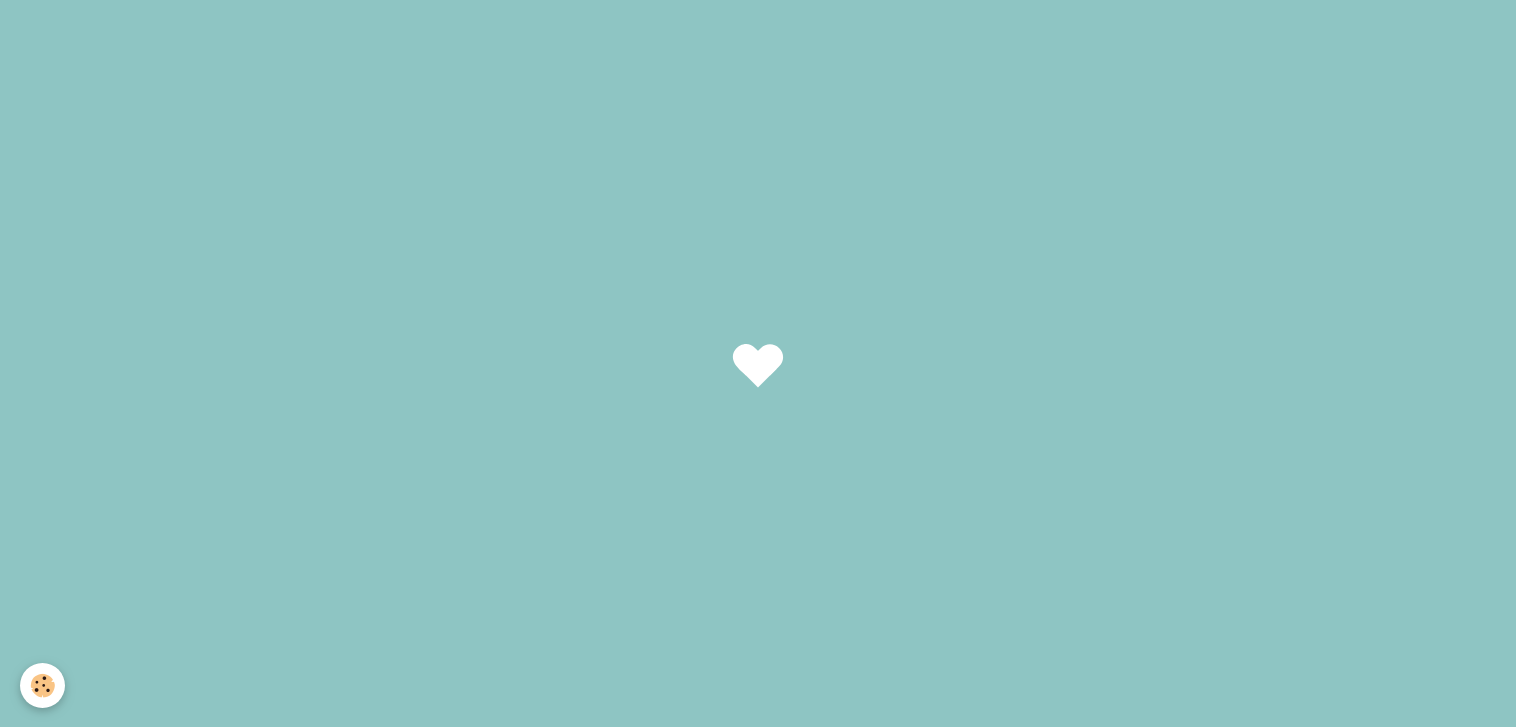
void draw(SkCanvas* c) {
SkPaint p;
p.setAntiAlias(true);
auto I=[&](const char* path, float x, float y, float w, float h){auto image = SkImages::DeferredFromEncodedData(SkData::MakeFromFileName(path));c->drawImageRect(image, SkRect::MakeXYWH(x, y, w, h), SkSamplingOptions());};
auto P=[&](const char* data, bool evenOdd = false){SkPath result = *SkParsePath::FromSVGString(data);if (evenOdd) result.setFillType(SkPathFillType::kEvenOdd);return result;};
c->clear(0xff8ec5c3);
p.setColor(0xffffffff);
c->drawPath(P("M758 351l18.5 18l-18.5 18.5l-18.5-18.5z"),p);
c->drawPath(P("M755 348l9.5 9l-18.5 18.5c-3.5-3.5-10.5-9-12-13.5c-5.5-13 11.5-24 21-14z"),p);
c->drawPath(P("M779 348c5.5 5 5.5 13.5 0 18.5l-9 9l-18.5-18.5l9.5-9c5-5 13-5 18 0z"),p);
p.setColor(0x3d000000);
p.setMaskFilter(SkMaskFilter::MakeBlur(kNormal_SkBlurStyle, 5));
c->drawRoundRect(SkRect::MakeXYWH(20,666,45,45),22.5,22.5,p);
p.setMaskFilter(nullptr);
p.setColor(0xffffffff);
c->drawCircle(42.5,685.5,22.5,p);
I("1.png",30,673,25,25);
}
